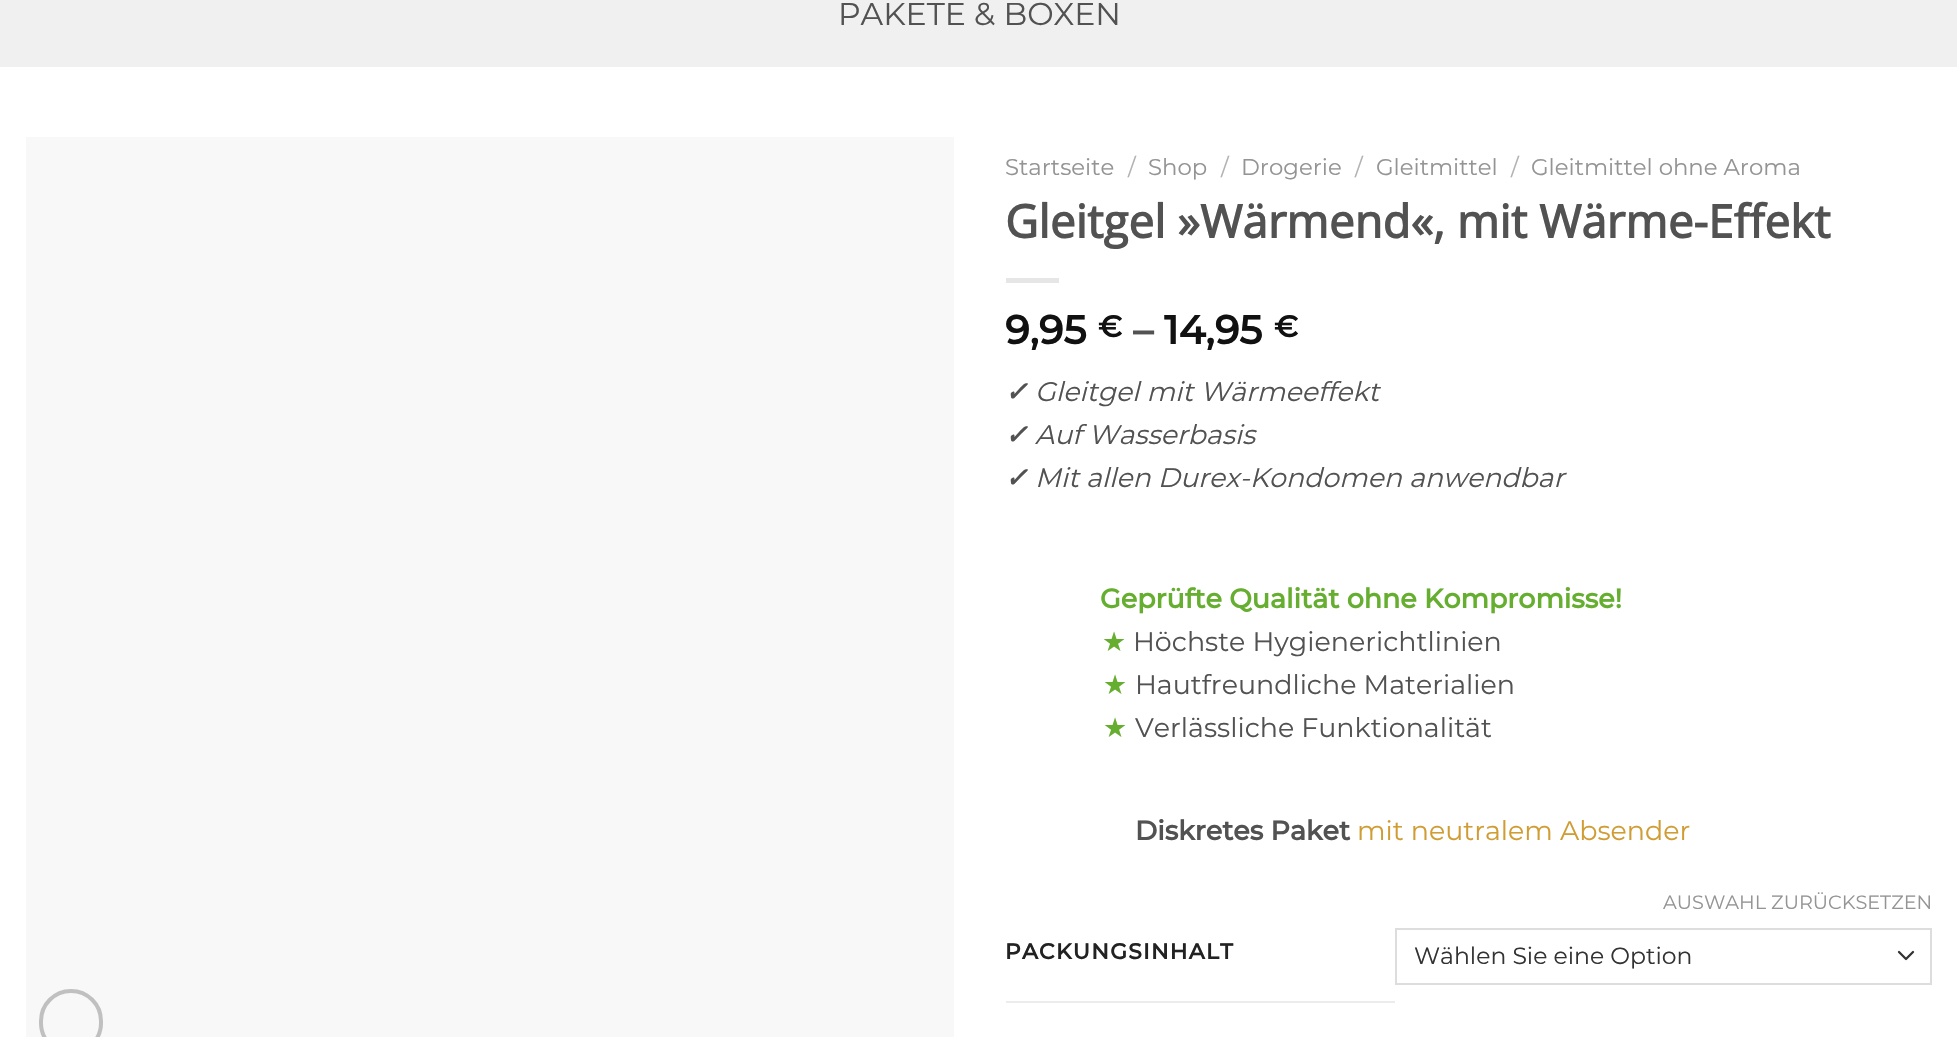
void draw(SkCanvas* c) {
SkPaint p;
p.setAntiAlias(true);
auto F=[&](const char* family, int weight, float size, bool italic = false){SkFontStyle style(weight, SkFontStyle::kNormal_Width,italic ? SkFontStyle::kItalic_Slant : SkFontStyle::kUpright_Slant);SkFont result(fontMgr->matchFamilyStyle(family, style), size);result.setSubpixel(true);return result;};
auto T=[&](const char* s, float x, float y, const SkFont& font){c->drawString(s, x, y, font, p);};
auto L=[&](const char* s, float x, float y, const SkFont& font, const SkPaint& ink, float letter, float word){std::vector<SkGlyphID> glyphs(font.countText(s, strlen(s), SkTextEncoding::kUTF8));std::vector<float> xs(glyphs.size());font.textToGlyphs(s, strlen(s), SkTextEncoding::kUTF8, glyphs);font.getXPos(glyphs, xs, x);float extra = 0;for (size_t i = 0; i < glyphs.size(); i++) {xs[i] += extra;extra += letter + word * (glyphs[i] == font.unicharToGlyph(' '));}c->drawTextBlob(SkTextBlob::MakeFromPosHGlyphs(glyphs, xs, y, font), 0, 0, ink);};
auto R=[&](float x, float y, float w, float h){c->drawRect(SkRect::MakeXYWH(x, y, w, h), p);};
auto P=[&](const char* data, bool evenOdd = false){SkPath result = *SkParsePath::FromSVGString(data);if (evenOdd) result.setFillType(SkPathFillType::kEvenOdd);return result;};
c->clear(0xffffffff);
p.setColor(0xfff0f0f0);
R(0,0,1957,67);
auto f1 = F("Montserrat",400,31.5);
p.setColor(0xff515251);
T("PAKETE & BOXEN",838,25,f1);
p.setColor(0xfff8f8f8);
R(26,137,928,900);
p.setStroke(true);
p.setStrokeWidth(4);
p.setColor(0xffc0c0c0);
c->drawRoundRect(SkRect::MakeXYWH(41,991,60,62),30,30,p);
auto f2 = F("Montserrat",400,22.8);
p.setStroke(false);
p.setColor(0xff949494);
T("Startseite",1005,175,f2);
p.setColor(0xffb2b2b2);
T("/",1128,175,f2);
p.setColor(0xff949494);
T("Shop",1148,175,f2);
p.setColor(0xffb2b2b2);
T("/",1221,175,f2);
p.setColor(0xff949494);
T("Drogerie",1241,175,f2);
p.setColor(0xffb2b2b2);
T("/",1355,175,f2);
p.setColor(0xff949494);
T("Gleitmittel",1376,175,f2);
p.setColor(0xffb2b2b2);
T("/",1511,175,f2);
p.setColor(0xff949494);
T("Gleitmittel ohne Aroma",1531,175,f2);
auto f3 = F("Open Sans",700,45.75);
p.setColor(0xff515251);
T("Gleitgel »Wärmend«, mit Wärme-Effekt",1005,238,f3);
p.setColor(0xffe6e6e6);
R(1006,278,53,5);
auto f4 = F("Montserrat",700,40);
p.setColor(0xff111111);
T("9,95",1005,344,f4);
auto f5 = F("Montserrat",700,30);
T("€",1098,337,f5);
p.setColor(0xff515251);
T("–",1133,344,f4);
p.setColor(0xff111111);
T("14,95",1164,344,f4);
T("€",1274,337,f5);
auto f6 = F("DejaVu Sans",700,26.9,true);
p.setColor(0xff515251);
T("✓",1005,401,f6);
auto f7 = F("Montserrat",400,26.9,true);
T("Gleitgel mit Wärmeeffekt",1035,401,f7);
T("✓",1005,444,f6);
T("Auf Wasserbasis",1035,444,f7);
T("✓",1005,487,f6);
T("Mit allen Durex-Kondomen anwendbar",1035,487,f7);
auto f8 = F("Montserrat",700,26.9);
p.setColor(0xff65ae2f);
T("Geprüfte Qualität ohne Kompromisse!",1100,608,f8);
auto f9 = F("DejaVu Sans",400,26.9);
T("★",1102,651,f9);
auto f10 = F("Montserrat",400,26.9);
p.setColor(0xff515251);
T("Höchste Hygienerichtlinien",1133,651,f10);
p.setColor(0xff65ae2f);
T("★",1103,694,f9);
p.setColor(0xff515251);
T("Hautfreundliche Materialien",1135,694,f10);
p.setColor(0xff65ae2f);
T("★",1103,737,f9);
p.setColor(0xff515251);
T("Verlässliche Funktionalität",1135,737,f10);
T("Diskretes Paket",1135,840,f8);
p.setColor(0xffd09d34);
T("mit neutralem Absender",1357,840,f10);
p.setColor(0xffececec);
R(1006,1001,389,2);
auto f11 = F("Montserrat",700,21.75);
p.setColor(0xff222222);
L("PACKUNGSINHALT",1005,959,f11,p,1.25,0);
auto f12 = F("Montserrat",400,19.25);
p.setColor(0xff949494);
T("AUSWAHL ZURÜCKSETZEN",1663,909,f12);
p.setStroke(true);
p.setStrokeWidth(2.3);
p.setStrokeCap(SkPaint::kRound_Cap);
p.setStrokeJoin(SkPaint::kRound_Join);
p.setColor(0xff333333);
c->drawPath(P("M1899 952l7 7l7-7"),p);
p.setStrokeWidth(2);
p.setStrokeCap(SkPaint::kButt_Cap);
p.setStrokeJoin(SkPaint::kMiter_Join);
p.setColor(0xffdddddd);
c->drawRect(SkRect::MakeXYWH(1396,929,535,55),p);
auto f13 = F("Montserrat",400,23.5);
p.setStroke(false);
p.setColor(0xff333333);
T("Wählen Sie eine Option",1414,964,f13);
}
